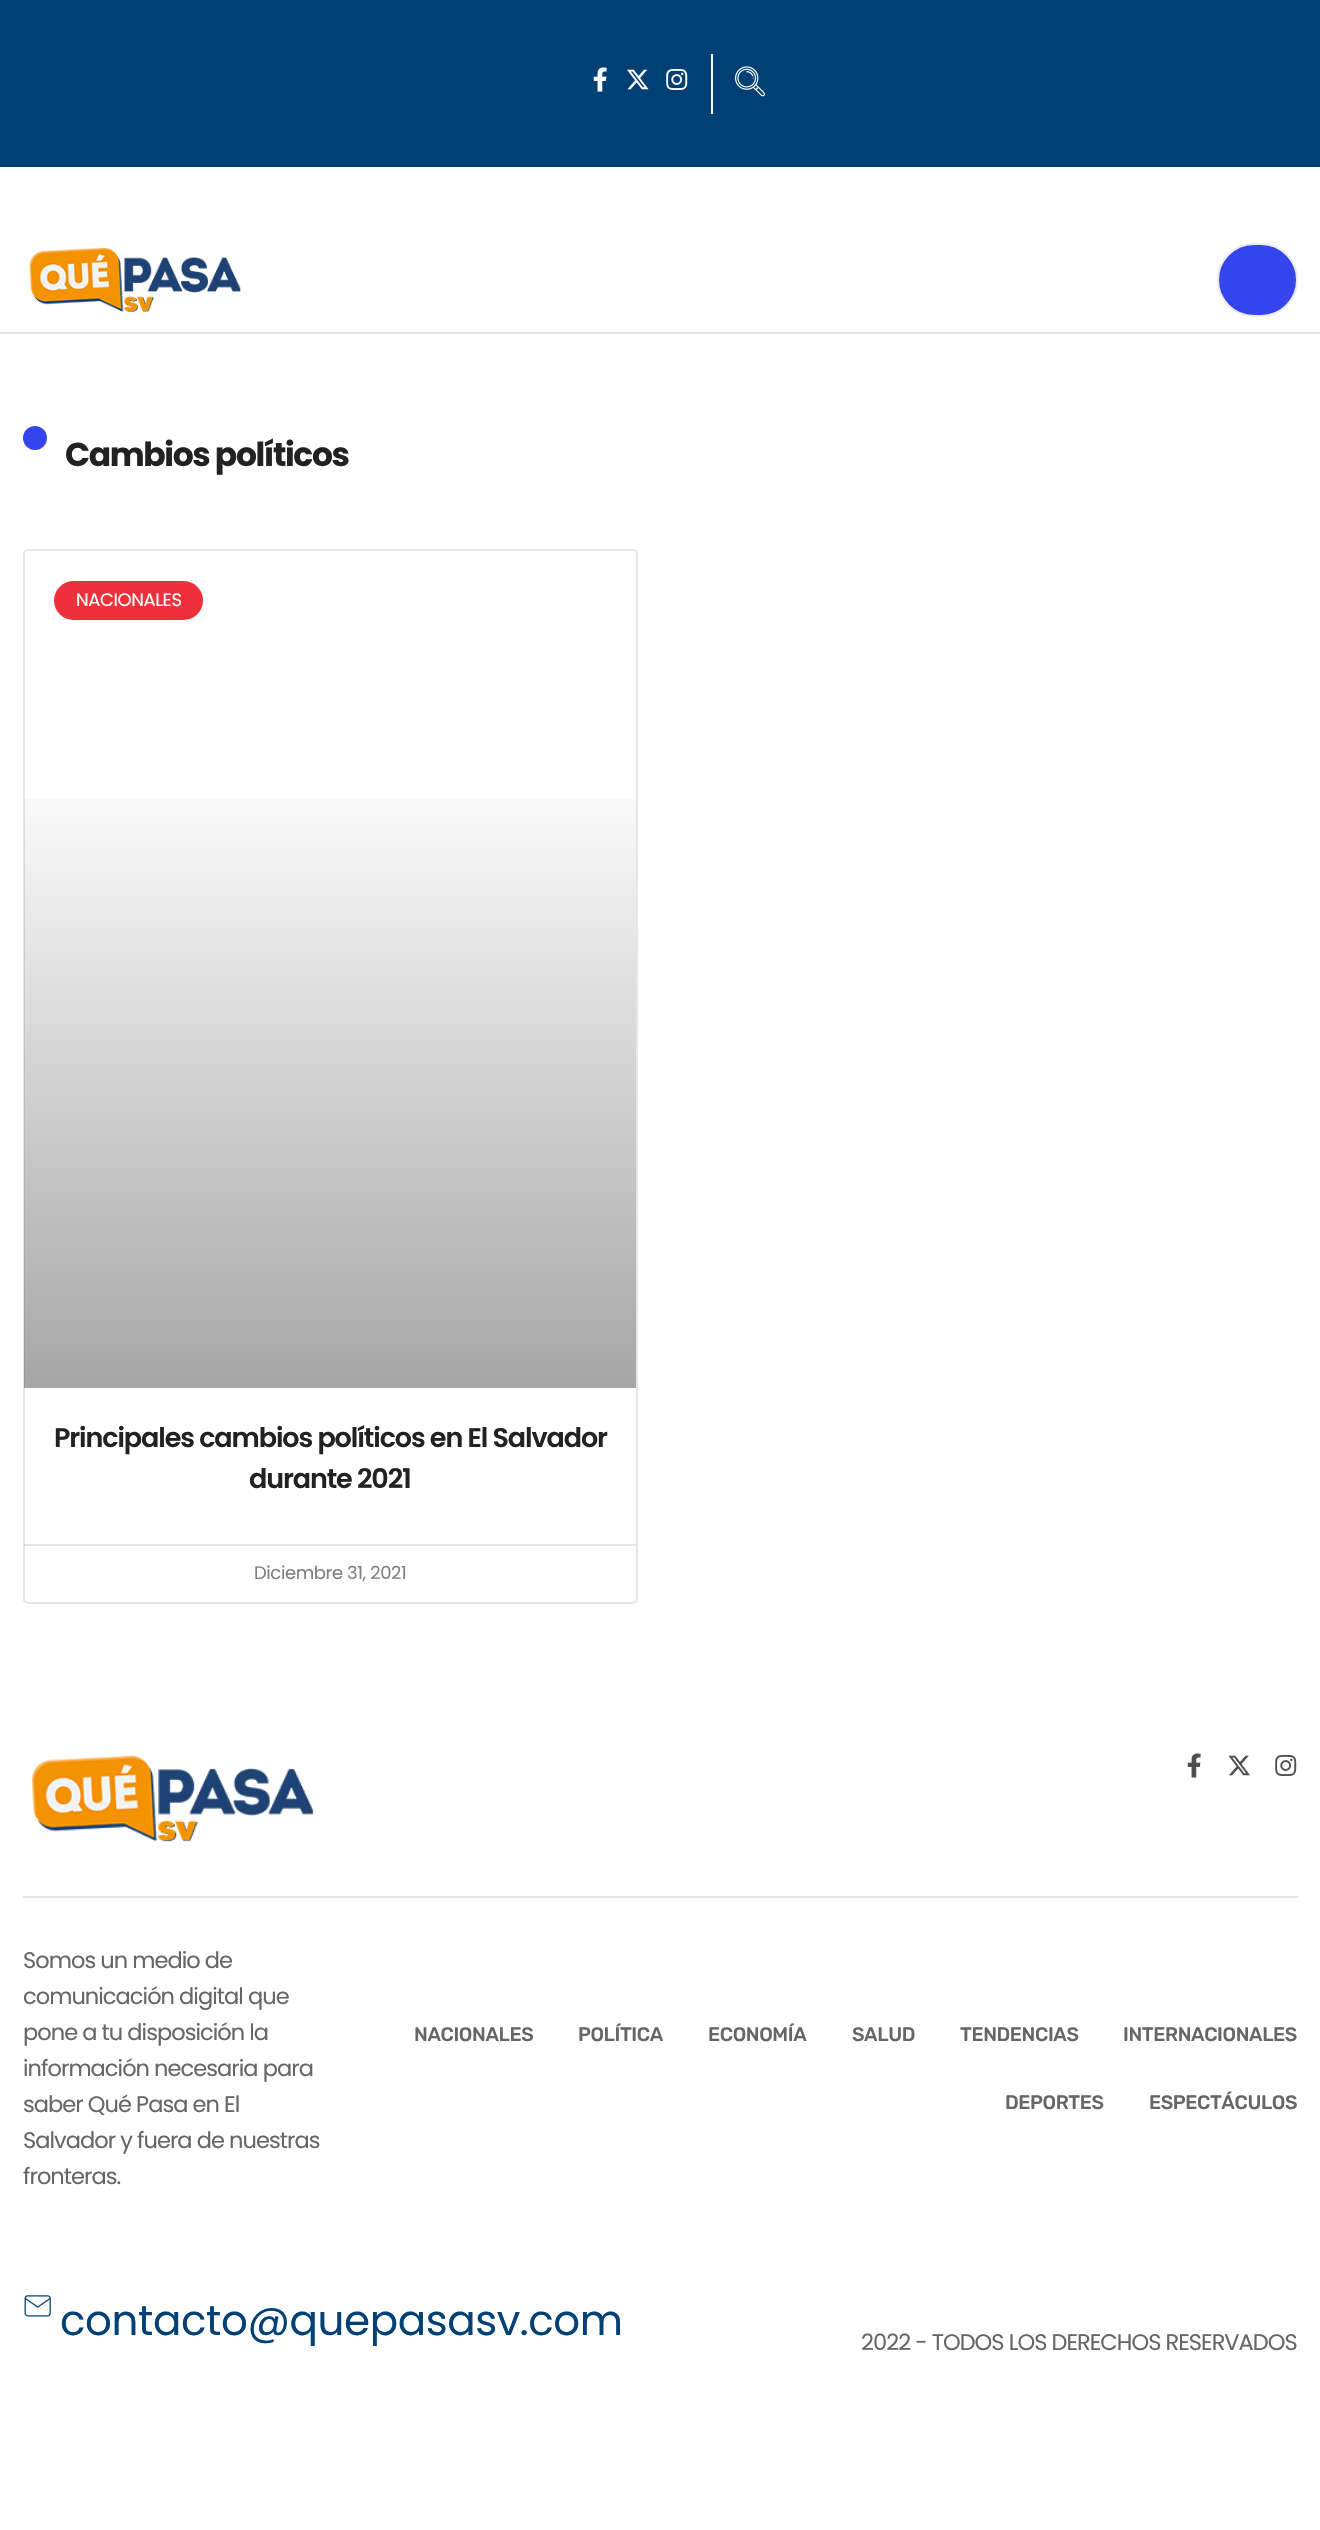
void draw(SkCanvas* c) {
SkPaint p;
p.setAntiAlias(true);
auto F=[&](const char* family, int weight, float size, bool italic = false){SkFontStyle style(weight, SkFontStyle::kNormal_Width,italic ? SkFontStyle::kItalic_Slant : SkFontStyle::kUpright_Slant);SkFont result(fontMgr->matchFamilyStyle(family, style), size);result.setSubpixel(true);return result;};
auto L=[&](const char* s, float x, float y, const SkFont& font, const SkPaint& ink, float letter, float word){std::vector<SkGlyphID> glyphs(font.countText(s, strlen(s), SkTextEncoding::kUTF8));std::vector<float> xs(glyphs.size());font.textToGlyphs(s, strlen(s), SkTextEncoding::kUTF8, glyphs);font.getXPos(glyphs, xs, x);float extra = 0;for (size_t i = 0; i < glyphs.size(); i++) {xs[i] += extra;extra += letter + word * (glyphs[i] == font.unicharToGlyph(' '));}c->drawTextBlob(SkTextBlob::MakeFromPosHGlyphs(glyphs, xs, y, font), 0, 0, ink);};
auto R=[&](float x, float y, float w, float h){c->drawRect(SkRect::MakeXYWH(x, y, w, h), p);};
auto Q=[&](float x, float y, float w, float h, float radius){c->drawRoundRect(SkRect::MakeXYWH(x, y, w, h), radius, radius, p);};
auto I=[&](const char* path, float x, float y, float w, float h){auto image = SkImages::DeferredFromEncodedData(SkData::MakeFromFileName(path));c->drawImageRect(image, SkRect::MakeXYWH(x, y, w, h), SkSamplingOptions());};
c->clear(0xffffffff);
p.setColor(0xffe6e6e6);
R(0,332,1320,2);
p.setColor(0xff014075);
R(0,0,1320,167);
I("1.png",593,67,14,25);
I("2.png",627,69,22,21);
I("3.png",666,68,22,22);
p.setColor(0xffffffff);
R(711,54,2,60);
I("4.png",735,66,30,31);
I("5.png",29,247,212,65);
p.setColor(0xff3545ee);
c->drawRoundRect(SkRect::MakeXYWH(1218,244,79,72),36,36,p);
p.setStroke(true);
p.setStrokeWidth(2);
p.setColor(0xffeaeaeb);
c->drawRoundRect(SkRect::MakeXYWH(1218,244,79,72),36,36,p);
p.setStroke(false);
p.setColor(0xff3545ee);
c->drawCircle(35,438,12,p);
auto f1 = F("Poppins",700,33);
p.setColor(0xff222222);
L("Cambios políticos",65,466,f1,p,-1.4,0);
p.setStroke(true);
p.setColor(0xffe6e6e6);
c->drawRoundRect(SkRect::MakeXYWH(24,550,613,1053),4,4,p);
p.setStroke(false);
p.setColor(0xffee303a);
Q(54,581,149,39,19.5);
auto f2 = F("Poppins",400,18);
p.setColor(0xffffffff);
L("NACIONALES",76,606,f2,p,-.4,0);
{
const SkColor colors[] = {0x59000000,0x00000000};
const float stops[] = {0,.75};
const SkPoint ends[] = {{330,1388}, {330,551}};
p.setShader(SkGradientShader::MakeLinear(ends, colors, stops, 2, SkTileMode::kClamp));
p.setAlpha(255);
}
R(24,799,612,589);
auto f3 = F("Poppins",600,27);
p.setShader(nullptr);
p.setColor(0xff222222);
L("Principales cambios políticos en El Salvador",54,1447,f3,p,-1.1,0);
L("durante 2021",249,1488,f3,p,-1.1,0);
p.setColor(0x1a000000);
R(24,1544,612,2);
p.setColor(0xff808080);
L("Diciembre 31, 2021",254,1579,f2,p,-.4,0);
p.setColor(0xffe6e6e6);
R(23,1896,1275,2);
I("6.png",32,1755,282,87);
I("7.png",1187,1753,14,25);
I("8.png",1228,1755,22,21);
I("9.png",1275,1754,22,22);
auto f4 = F("Poppins",400,22.5);
p.setColor(0xff666666);
L("Somos un medio de",23,1968,f4,p,-.95,0);
L("comunicación digital que",23,2004,f4,p,-.95,0);
L("pone a tu disposición la",23,2040,f4,p,-.95,0);
L("información necesaria para",23,2076,f4,p,-.95,0);
L("saber Qué Pasa en El",23,2112,f4,p,-.95,0);
L("Salvador y fuera de nuestras",23,2148,f4,p,-.95,0);
L("fronteras.",23,2184,f4,p,-.95,0);
auto f5 = F("Rubik",500,19.5);
L("NACIONALES",414,2041,f5,p,-.4,0);
L("POLÍTICA",578,2041,f5,p,-.4,0);
L("ECONOMÍA",708,2041,f5,p,-.4,0);
L("SALUD",852,2041,f5,p,-.4,0);
L("TENDENCIAS",960,2041,f5,p,-.4,0);
L("INTERNACIONALES",1123,2041,f5,p,-.4,0);
L("DEPORTES",1005,2109,f5,p,-.4,0);
L("ESPECTÁCULOS",1149,2109,f5,p,-.4,0);
I("10.png",24,2295,27,22);
auto f6 = F("Poppins",400,42);
p.setColor(0xff014175);
L("contacto@quepasasv.com",60,2335,f6,p,-.4,0);
p.setColor(0xff666666);
L("2022 - TODOS LOS DERECHOS RESERVADOS",861,2350,f4,p,-.95,0);
}
